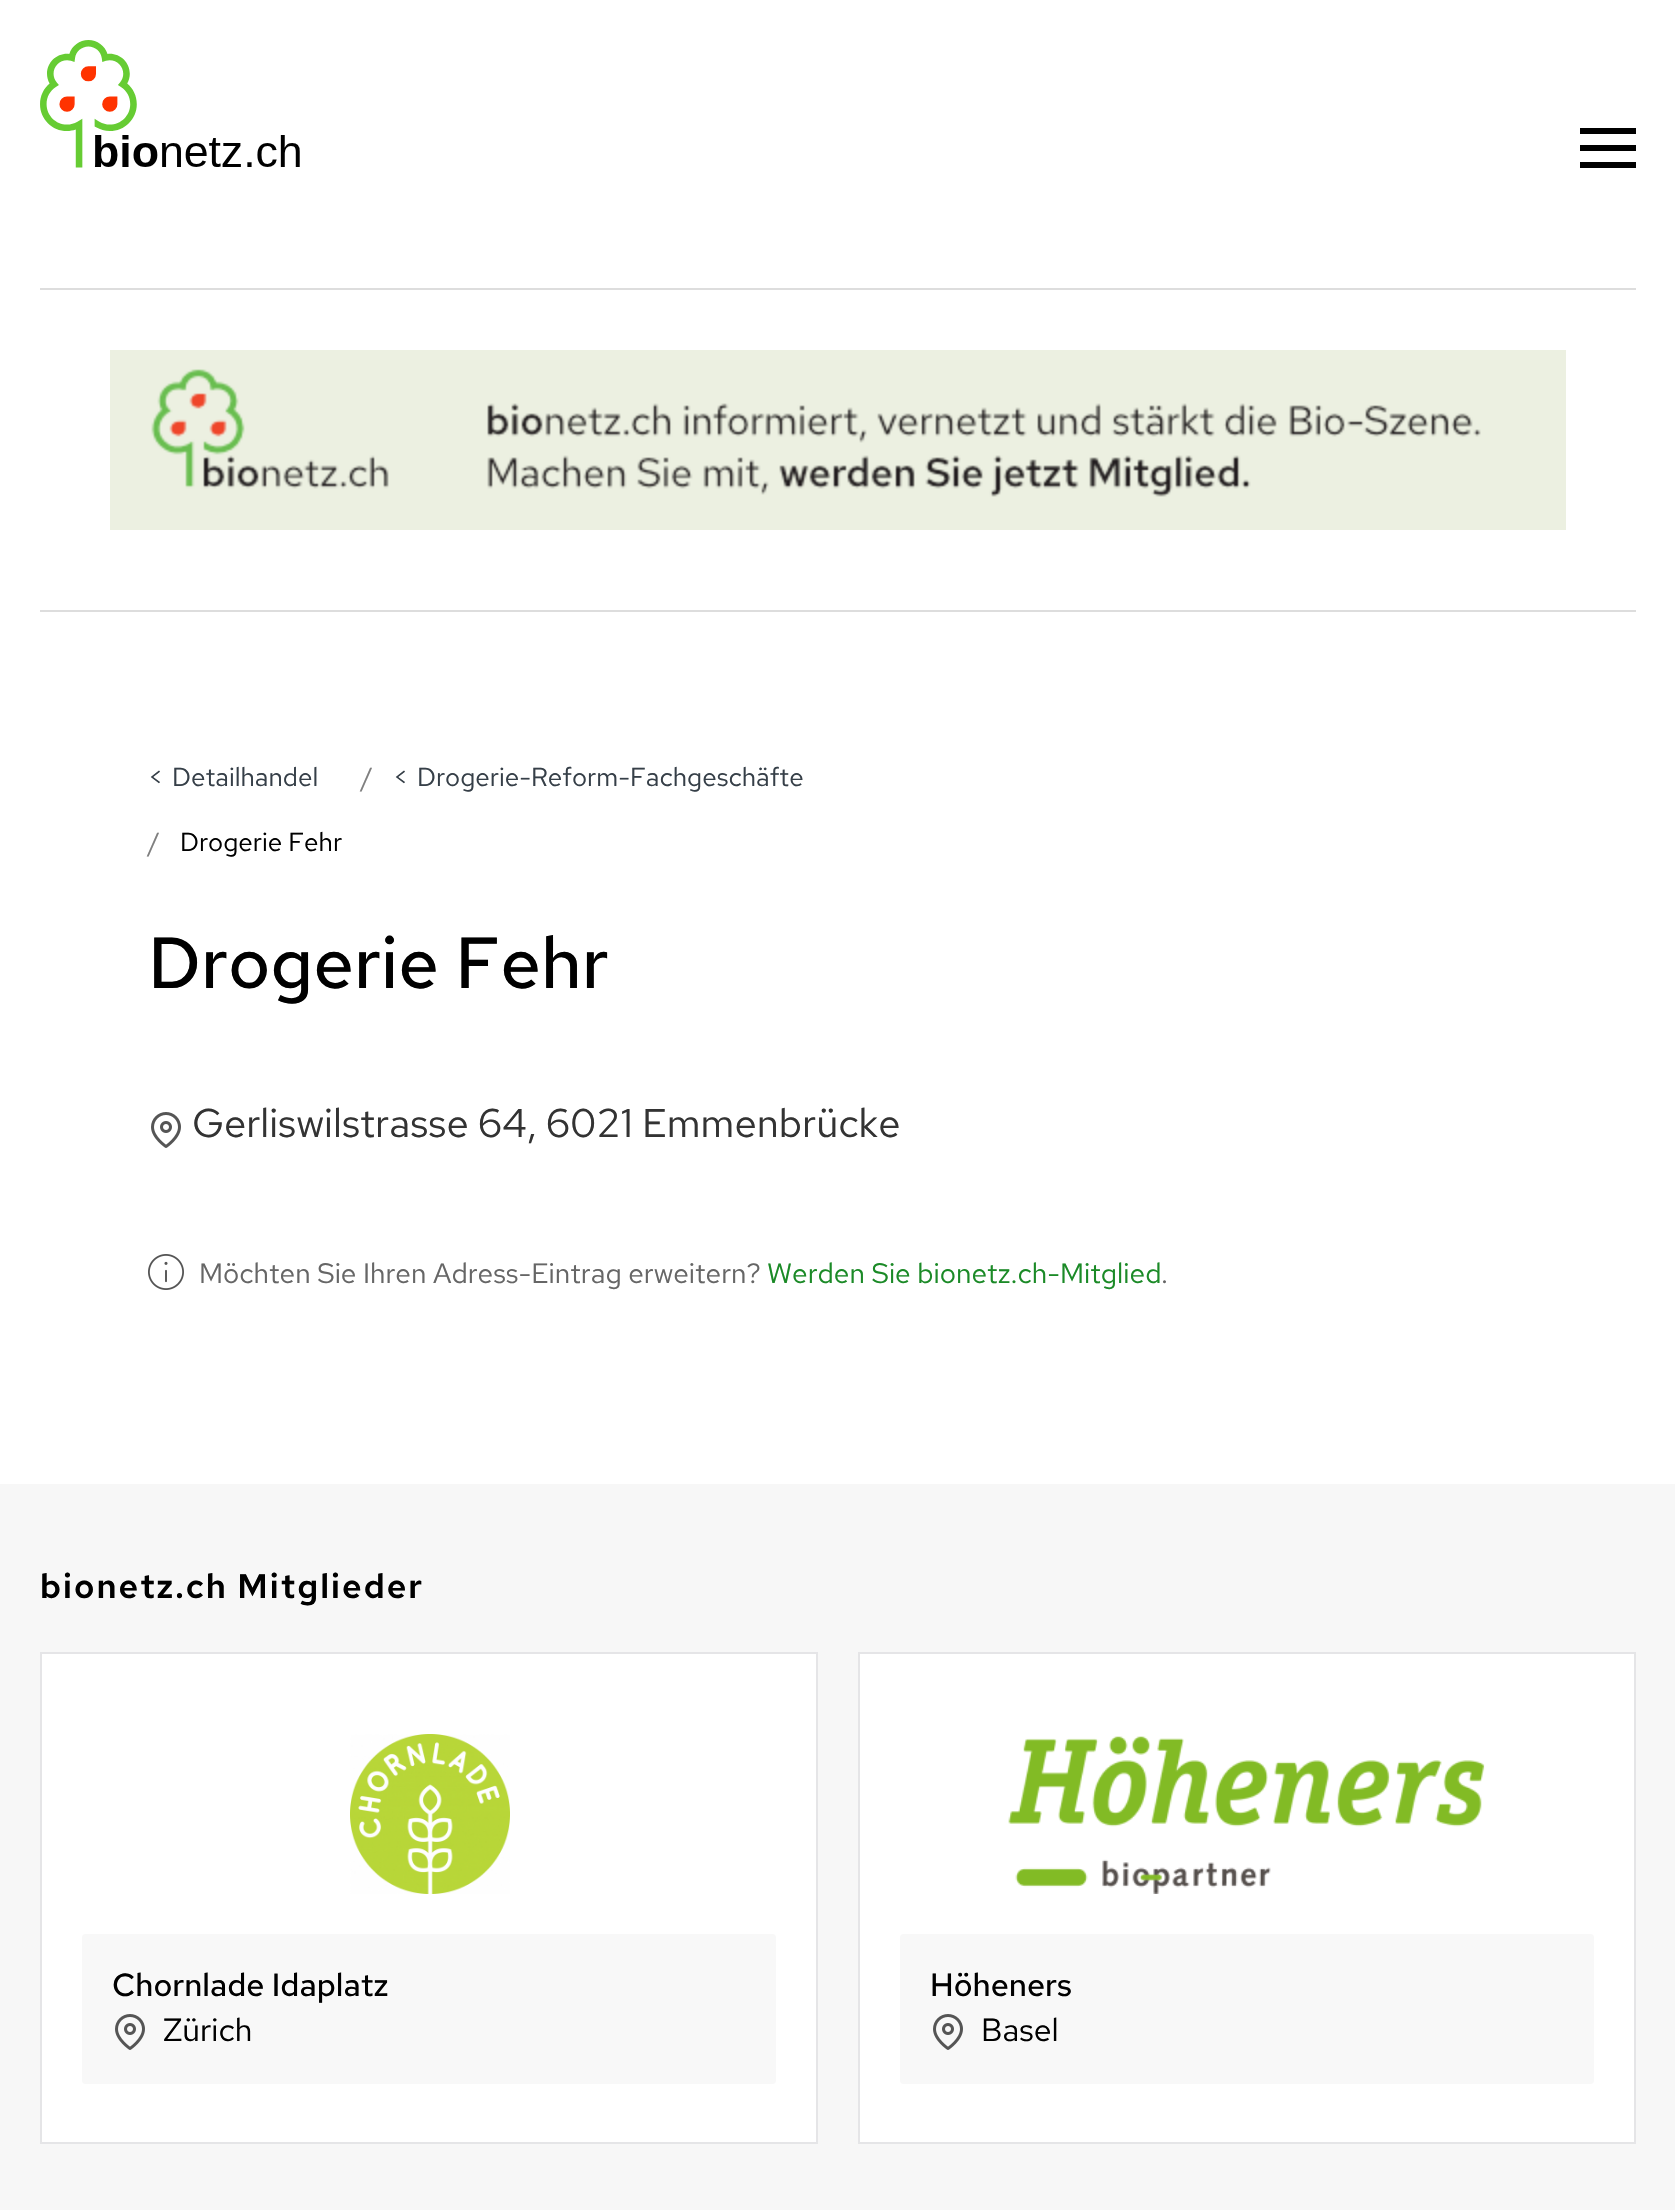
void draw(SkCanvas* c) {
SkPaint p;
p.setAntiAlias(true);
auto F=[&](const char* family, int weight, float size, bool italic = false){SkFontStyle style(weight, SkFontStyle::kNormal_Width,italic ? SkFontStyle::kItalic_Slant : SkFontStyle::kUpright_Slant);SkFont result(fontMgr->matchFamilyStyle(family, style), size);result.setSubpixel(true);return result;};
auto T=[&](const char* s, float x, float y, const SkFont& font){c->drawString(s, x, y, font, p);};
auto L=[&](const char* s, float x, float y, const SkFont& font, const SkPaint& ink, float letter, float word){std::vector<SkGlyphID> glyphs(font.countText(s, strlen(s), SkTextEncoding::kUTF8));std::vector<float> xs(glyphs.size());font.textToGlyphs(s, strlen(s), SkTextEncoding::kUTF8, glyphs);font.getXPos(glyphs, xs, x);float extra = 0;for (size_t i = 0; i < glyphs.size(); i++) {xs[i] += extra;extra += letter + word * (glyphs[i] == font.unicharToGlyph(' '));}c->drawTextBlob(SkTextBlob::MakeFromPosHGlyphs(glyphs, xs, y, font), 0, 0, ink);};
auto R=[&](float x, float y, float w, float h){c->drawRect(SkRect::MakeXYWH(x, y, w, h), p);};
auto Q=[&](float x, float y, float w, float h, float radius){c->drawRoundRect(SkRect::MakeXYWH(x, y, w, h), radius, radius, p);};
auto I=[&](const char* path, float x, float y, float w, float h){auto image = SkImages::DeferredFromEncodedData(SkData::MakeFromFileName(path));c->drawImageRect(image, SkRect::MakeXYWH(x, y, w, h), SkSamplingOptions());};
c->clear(0xffffffff);
I("1.png",40,40,260,128);
p.setColor(0xff000000);
R(1580,128,56,6);
R(1580,145,56,6);
R(1580,162,56,6);
p.setColor(0xffdddddd);
R(40,288,1596,2);
R(40,610,1596,2);
I("2.png",110,350,1456,180);
auto f1 = F("Red Hat Text",400,26);
p.setColor(0xff363f48);
T("<",148,786,f1);
T("Detailhandel",172,786,f1);
p.setColor(0xff7f7f7f);
T("/",361,786,f1);
p.setColor(0xff363f48);
T("<",393,786,f1);
T("Drogerie-Reform-Fachgeschäfte",417,786,f1);
p.setColor(0xff7f7f7f);
T("/",148,851,f1);
p.setColor(0xff000000);
T("Drogerie Fehr",180,851,f1);
auto f2 = F("Red Hat Text",500,72);
T("Drogerie Fehr",148,988,f2);
I("3.png",151,1112,30,36);
auto f3 = F("Red Hat Text",400,40);
p.setColor(0xff333333);
T("Gerliswilstrasse 64, 6021 Emmenbrücke",192,1137,f3);
I("4.png",148,1254,36,36);
auto f4 = F("Red Hat Text",400,28);
p.setColor(0xff666666);
T("Möchten Sie Ihren Adress-Eintrag erweitern?",199,1283,f4);
p.setColor(0xff1b8a27);
T("Werden Sie bionetz.ch-Mitglied",767,1283,f4);
p.setColor(0xff666666);
T(".",1161,1283,f4);
p.setColor(0xfff7f7f7);
R(0,1484,1675,726);
auto f5 = F("Red Hat Text",600,34);
p.setColor(0xff000000);
L("bionetz.ch Mitglieder",40,1598,f5,p,2,0);
p.setColor(0xffffffff);
c->drawRect(SkRect::MakeXYWH(41,1653,776,490),p);
p.setStroke(true);
p.setStrokeWidth(2);
p.setColor(0xffe5e5e7);
c->drawRect(SkRect::MakeXYWH(41,1653,776,490),p);
I("5.png",350,1734,160,160);
p.setStroke(false);
p.setColor(0xfff8f8f8);
Q(82,1934,694,150,4);
auto f6 = F("Red Hat Text",500,32);
p.setColor(0xff000000);
T("Chornlade Idaplatz",112,1996,f6);
I("6.png",115,2014,30,36);
auto f7 = F("Red Hat Text",400,32);
T("Zürich",163,2041,f7);
p.setColor(0xffffffff);
c->drawRect(SkRect::MakeXYWH(859,1653,776,490),p);
p.setStroke(true);
p.setColor(0xffe5e5e7);
c->drawRect(SkRect::MakeXYWH(859,1653,776,490),p);
I("7.png",1008,1736,477,158);
p.setStroke(false);
p.setColor(0xfff8f8f8);
Q(900,1934,694,150,4);
p.setColor(0xff000000);
T("Höheners",930,1996,f6);
I("6.png",933,2014,30,36);
T("Basel",981,2041,f7);
}
